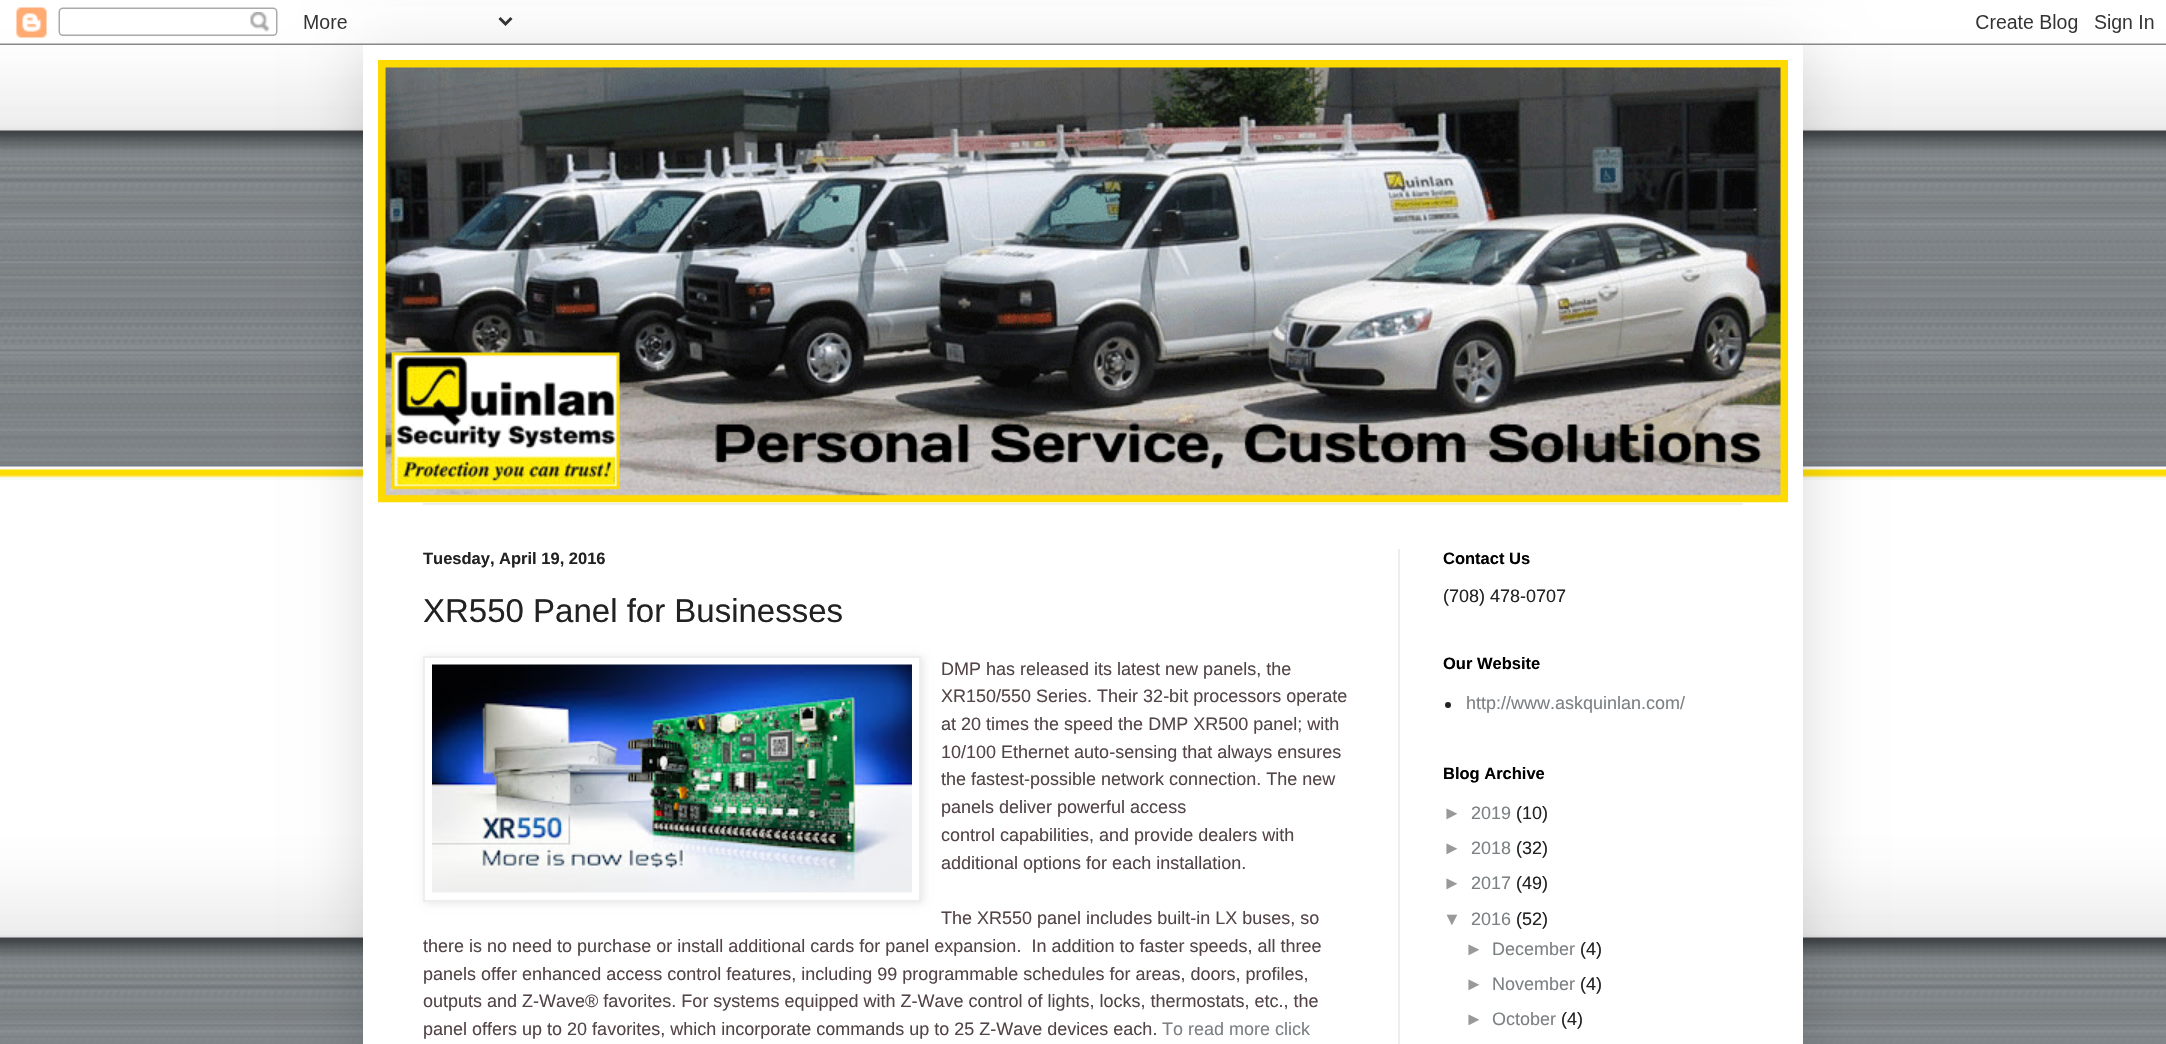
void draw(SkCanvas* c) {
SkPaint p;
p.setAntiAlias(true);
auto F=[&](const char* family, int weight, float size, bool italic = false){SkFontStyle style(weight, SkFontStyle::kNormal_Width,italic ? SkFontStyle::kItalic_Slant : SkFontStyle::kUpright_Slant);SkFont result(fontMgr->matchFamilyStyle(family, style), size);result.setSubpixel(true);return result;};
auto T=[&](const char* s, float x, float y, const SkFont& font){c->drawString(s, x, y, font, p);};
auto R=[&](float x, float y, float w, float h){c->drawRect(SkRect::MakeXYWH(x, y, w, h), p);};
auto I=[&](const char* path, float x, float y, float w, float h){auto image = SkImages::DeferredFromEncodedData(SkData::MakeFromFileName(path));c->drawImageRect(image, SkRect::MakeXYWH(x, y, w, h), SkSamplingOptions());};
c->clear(0xffffffff);
I("1.png",0,0,2166,1044);
p.setColor(0x26000000);
p.setMaskFilter(SkMaskFilter::MakeBlur(kNormal_SkBlurStyle, 30));
c->drawRect(SkRect::MakeXYWH(363,45,1440,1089),p);
p.setMaskFilter(nullptr);
I("2.png",0,7,2166,38);
p.setColor(0xffffffff);
R(363,45,1440,999);
I("3.png",378,60,1410,443);
p.setColor(0xffeeeeee);
R(423,503,1320,2);
R(1398,549,2,495);
auto f1 = F("Liberation Sans",700,16.5);
p.setColor(0xff222222);
T("Tuesday, April 19, 2016",423,564,f1);
auto f2 = F("Liberation Sans",400,33);
T("XR550 Panel for Businesses",423,622,f2);
p.setColor(0x1a000000);
p.setMaskFilter(SkMaskFilter::MakeBlur(kNormal_SkBlurStyle, 4));
c->drawRect(SkRect::MakeXYWH(425,657,498,246),p);
p.setMaskFilter(nullptr);
p.setColor(0xffffffff);
c->drawRect(SkRect::MakeXYWH(424,657,496,244),p);
p.setStroke(true);
p.setStrokeWidth(2);
p.setColor(0xffeeeeee);
c->drawRect(SkRect::MakeXYWH(424,657,496,244),p);
I("4.png",432,664,480,229);
auto f3 = F("Liberation Sans",400,18);
p.setStroke(false);
p.setColor(0xff534547);
T("DMP has released its latest new panels, the",941,675,f3);
T("XR150/550 Series. Their 32-bit processors operate",941,702,f3);
T("at 20 times the speed the DMP XR500 panel; with",941,730,f3);
T("10/100 Ethernet auto-sensing that always ensures",941,758,f3);
T("the fastest-possible network connection. The new",941,785,f3);
T("panels deliver powerful access",941,813,f3);
T("control capabilities, and provide dealers with",941,841,f3);
T("additional options for each installation.",941,869,f3);
T("The XR550 panel includes built-in LX buses, so",941,924,f3);
T("there is no need to purchase or install additional cards for panel expansion.  In addition to faster speeds, all three",423,952,f3);
T("panels offer enhanced access control features, including 99 programmable schedules for areas, doors, profiles,",423,980,f3);
T("outputs and Z-Wave® favorites. For systems equipped with Z-Wave control of lights, locks, thermostats, etc., the",423,1007,f3);
T("panel offers up to 20 favorites, which incorporate commands up to 25 Z-Wave devices each.",423,1035,f3);
p.setColor(0xff7c8184);
T("To read more click",1162,1035,f3);
p.setColor(0xff000000);
T("Contact Us",1443,564,f1);
p.setColor(0xff222222);
T("(708) 478-0707",1443,602,f3);
p.setColor(0xff000000);
T("Our Website",1443,669,f1);
p.setColor(0xff222222);
c->drawCircle(1448,705,3,p);
p.setColor(0xff7c8184);
T("http://www.askquinlan.com/",1466,709,f3);
p.setColor(0xff000000);
T("Blog Archive",1443,779,f1);
p.setColor(0xff999999);
T("►",1443,819,f3);
p.setColor(0xff7c8184);
T("2019",1471,819,f3);
p.setColor(0xff222222);
T("(10)",1516,819,f3);
p.setColor(0xff999999);
T("►",1443,854,f3);
p.setColor(0xff7c8184);
T("2018",1471,854,f3);
p.setColor(0xff222222);
T("(32)",1516,854,f3);
p.setColor(0xff999999);
T("►",1443,889,f3);
p.setColor(0xff7c8184);
T("2017",1471,889,f3);
p.setColor(0xff222222);
T("(49)",1516,889,f3);
p.setColor(0xff999999);
T("▼",1443,925,f3);
p.setColor(0xff7c8184);
T("2016",1471,925,f3);
p.setColor(0xff222222);
T("(52)",1516,925,f3);
p.setColor(0xff999999);
T("►",1465,955,f3);
p.setColor(0xff7c8184);
T("December",1492,955,f3);
p.setColor(0xff222222);
T("(4)",1580,955,f3);
p.setColor(0xff999999);
T("►",1465,990,f3);
p.setColor(0xff7c8184);
T("November",1492,990,f3);
p.setColor(0xff222222);
T("(4)",1580,990,f3);
p.setColor(0xff999999);
T("►",1465,1025,f3);
p.setColor(0xff7c8184);
T("October",1492,1025,f3);
p.setColor(0xff222222);
T("(4)",1561,1025,f3);
}
